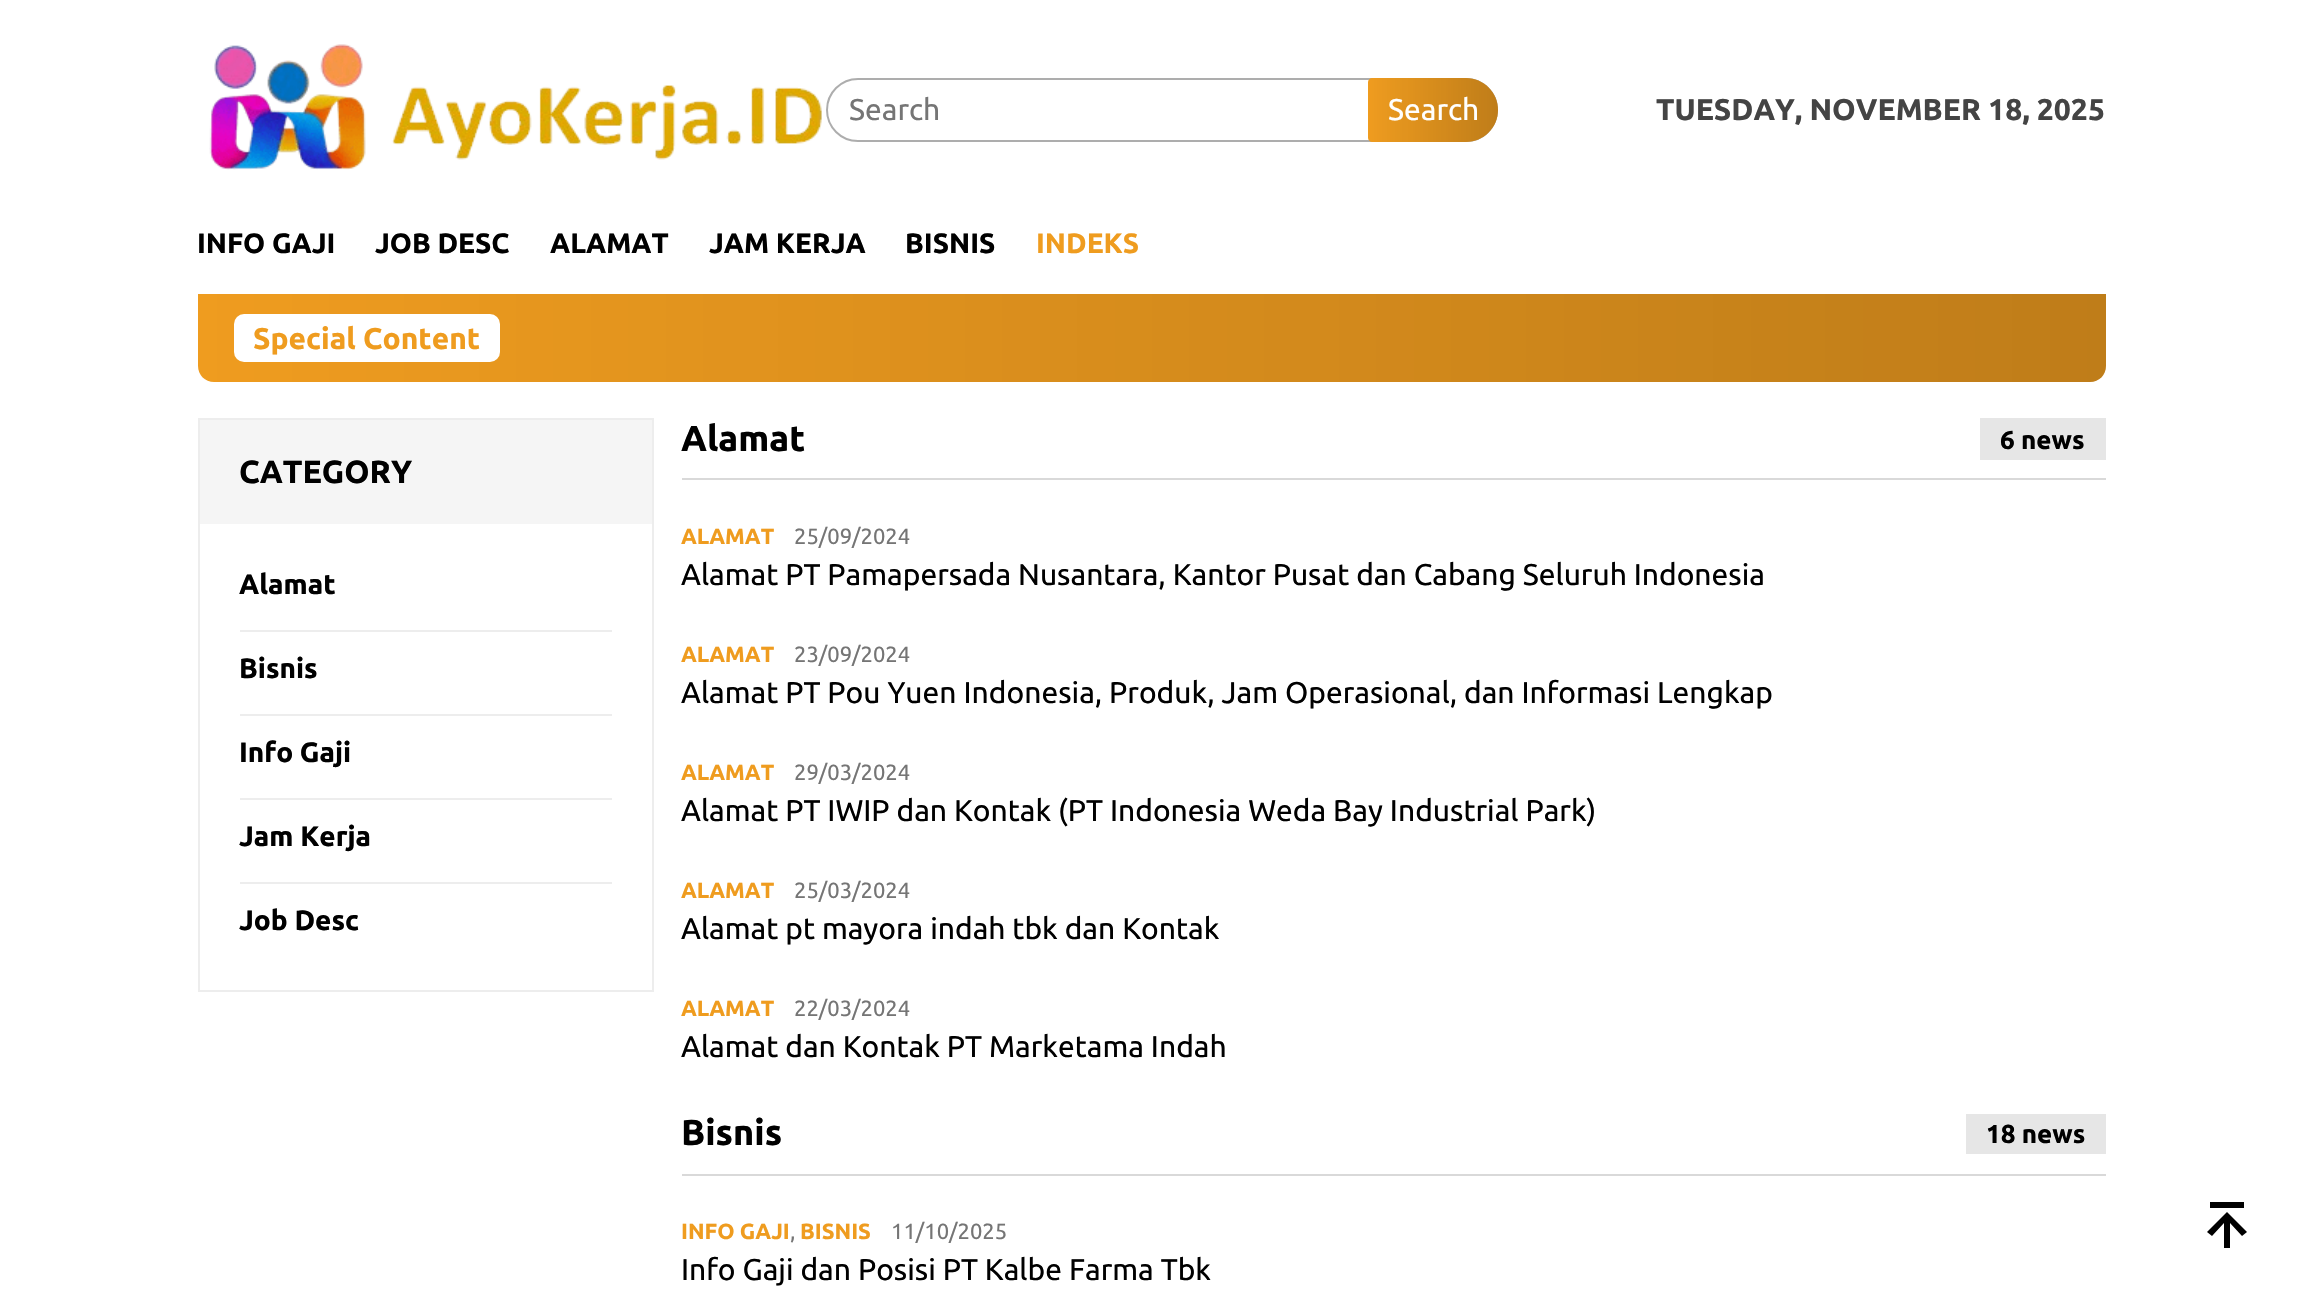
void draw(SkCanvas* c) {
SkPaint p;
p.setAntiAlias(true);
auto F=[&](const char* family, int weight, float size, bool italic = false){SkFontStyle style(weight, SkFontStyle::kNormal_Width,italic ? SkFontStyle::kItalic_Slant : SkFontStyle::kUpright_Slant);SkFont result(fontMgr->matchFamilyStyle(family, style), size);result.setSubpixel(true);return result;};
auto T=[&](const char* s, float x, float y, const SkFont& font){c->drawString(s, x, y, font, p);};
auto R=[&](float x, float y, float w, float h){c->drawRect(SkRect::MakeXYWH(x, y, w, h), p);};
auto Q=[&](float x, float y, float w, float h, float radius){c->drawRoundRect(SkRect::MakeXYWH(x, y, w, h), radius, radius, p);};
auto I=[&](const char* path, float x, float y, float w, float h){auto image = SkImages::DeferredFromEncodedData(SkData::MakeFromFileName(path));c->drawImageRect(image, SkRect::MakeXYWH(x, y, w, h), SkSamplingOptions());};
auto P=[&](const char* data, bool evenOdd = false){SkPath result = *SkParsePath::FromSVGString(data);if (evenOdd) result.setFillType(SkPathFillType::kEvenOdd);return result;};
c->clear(0xffffffff);
I("1.png",209,44,613,126);
p.setStroke(true);
p.setStrokeWidth(2);
p.setColor(0xffadadad);
c->drawRoundRect(SkRect::MakeXYWH(827,79,670,62),31,31,p);
auto f1 = F("Ubuntu",400,30);
p.setStroke(false);
p.setColor(0xff757575);
T("Search",849,120,f1);
p.setColor(0xffef9c1f);
c->drawPath(P("M1372 78h94c17.5 0 32 14.5 32 32c0 17.5-14.5 32-32 32h-94c-2 0-4-2-4-4v-56c0-2 2-4 4-4z"),p);
{
const SkColor colors[] = {0x00000000,0x33000000};
const float stops[] = {0,1};
const SkPoint ends[] = {{1368,110}, {1498,110}};
p.setShader(SkGradientShader::MakeLinear(ends, colors, stops, 2, SkTileMode::kClamp));
p.setAlpha(255);
}
c->drawPath(P("M1372 78h94c17.5 0 32 14.5 32 32c0 17.5-14.5 32-32 32h-94c-2 0-4-2-4-4v-56c0-2 2-4 4-4z"),p);
p.setShader(nullptr);
p.setColor(0xffffffff);
T("Search",1388,120,f1);
auto f2 = F("Ubuntu",700,30);
p.setColor(0xff444444);
T("TUESDAY, NOVEMBER 18, 2025",1656,120,f2);
auto f3 = F("Ubuntu",700,28);
p.setColor(0xff000000);
T("INFO GAJI",197,253,f3);
T("JOB DESC",375,253,f3);
T("ALAMAT",550,253,f3);
T("JAM KERJA",709,253,f3);
T("BISNIS",905,253,f3);
p.setColor(0xffef9c1f);
T("INDEKS",1036,253,f3);
c->drawPath(P("M198 294h1908v72c0 9-7 16-16 16h-1876c-9 0-16-7-16-16z"),p);
{
const SkColor colors[] = {0x00000000,0x33000000};
const float stops[] = {0,1};
const SkPoint ends[] = {{198,338}, {2106,338}};
p.setShader(SkGradientShader::MakeLinear(ends, colors, stops, 2, SkTileMode::kClamp));
p.setAlpha(255);
}
c->drawPath(P("M198 294h1908v72c0 9-7 16-16 16h-1876c-9 0-16-7-16-16z"),p);
p.setShader(nullptr);
p.setColor(0xffffffff);
Q(234,314,266,48,10);
p.setColor(0xffef9c1f);
T("Special Content",253,349,f2);
p.setStroke(true);
p.setColor(0xffededed);
c->drawRect(SkRect::MakeXYWH(199,419,454,572),p);
p.setStroke(false);
p.setColor(0xfff5f5f5);
R(200,420,452,104);
auto f4 = F("Ubuntu",700,32);
p.setColor(0xff000000);
T("CATEGORY",239,483,f4);
p.setColor(0xffededed);
R(240,630,372,2);
p.setColor(0xff000000);
T("Alamat",239,594,f3);
p.setColor(0xffededed);
R(240,714,372,2);
p.setColor(0xff000000);
T("Bisnis",239,678,f3);
p.setColor(0xffededed);
R(240,798,372,2);
p.setColor(0xff000000);
T("Info Gaji",239,762,f3);
p.setColor(0xffededed);
R(240,882,372,2);
p.setColor(0xff000000);
T("Jam Kerja",239,846,f3);
T("Job Desc",239,930,f3);
p.setColor(0xffd9d9d9);
R(682,478,1424,2);
auto f5 = F("Ubuntu",700,36);
p.setColor(0xff000000);
T("Alamat",681,451,f5);
p.setColor(0xffe6e6e6);
R(1980,418,126,42);
auto f6 = F("Ubuntu",700,26);
p.setColor(0xff000000);
T("6 news",2000,449,f6);
auto f7 = F("Ubuntu",700,22);
p.setColor(0xffef9c1f);
T("ALAMAT",681,544,f7);
auto f8 = F("Ubuntu",400,22);
p.setColor(0xff757575);
T("25/09/2024",794,544,f8);
p.setColor(0xff000000);
T("Alamat PT Pamapersada Nusantara, Kantor Pusat dan Cabang Seluruh Indonesia",681,585,f1);
p.setColor(0xffef9c1f);
T("ALAMAT",681,662,f7);
p.setColor(0xff757575);
T("23/09/2024",794,662,f8);
p.setColor(0xff000000);
T("Alamat PT Pou Yuen Indonesia, Produk, Jam Operasional, dan Informasi Lengkap",681,703,f1);
p.setColor(0xffef9c1f);
T("ALAMAT",681,780,f7);
p.setColor(0xff757575);
T("29/03/2024",794,780,f8);
p.setColor(0xff000000);
T("Alamat PT IWIP dan Kontak (PT Indonesia Weda Bay Industrial Park)",681,821,f1);
p.setColor(0xffef9c1f);
T("ALAMAT",681,898,f7);
p.setColor(0xff757575);
T("25/03/2024",794,898,f8);
p.setColor(0xff000000);
T("Alamat pt mayora indah tbk dan Kontak",681,939,f1);
p.setColor(0xffef9c1f);
T("ALAMAT",681,1016,f7);
p.setColor(0xff757575);
T("22/03/2024",794,1016,f8);
p.setColor(0xff000000);
T("Alamat dan Kontak PT Marketama Indah",681,1057,f1);
p.setColor(0xffd9d9d9);
R(682,1174,1424,2);
p.setColor(0xff000000);
T("Bisnis",681,1145,f5);
p.setColor(0xffe6e6e6);
R(1966,1114,140,40);
p.setColor(0xff000000);
T("18 news",1986,1143,f6);
p.setColor(0xffef9c1f);
T("INFO GAJI",681,1239,f7);
p.setColor(0xff757575);
T(",",790,1239,f8);
p.setColor(0xffef9c1f);
T("BISNIS",800,1239,f7);
p.setColor(0xff757575);
T("11/10/2025",891,1239,f8);
p.setColor(0xff000000);
T("Info Gaji dan Posisi PT Kalbe Farma Tbk",681,1280,f1);
c->drawPath(P("M2210 1202h34v6h-34zm2 34l12-13v25h6v-25l12 13l5-4l-20-20l-20 20z"),p);
}
